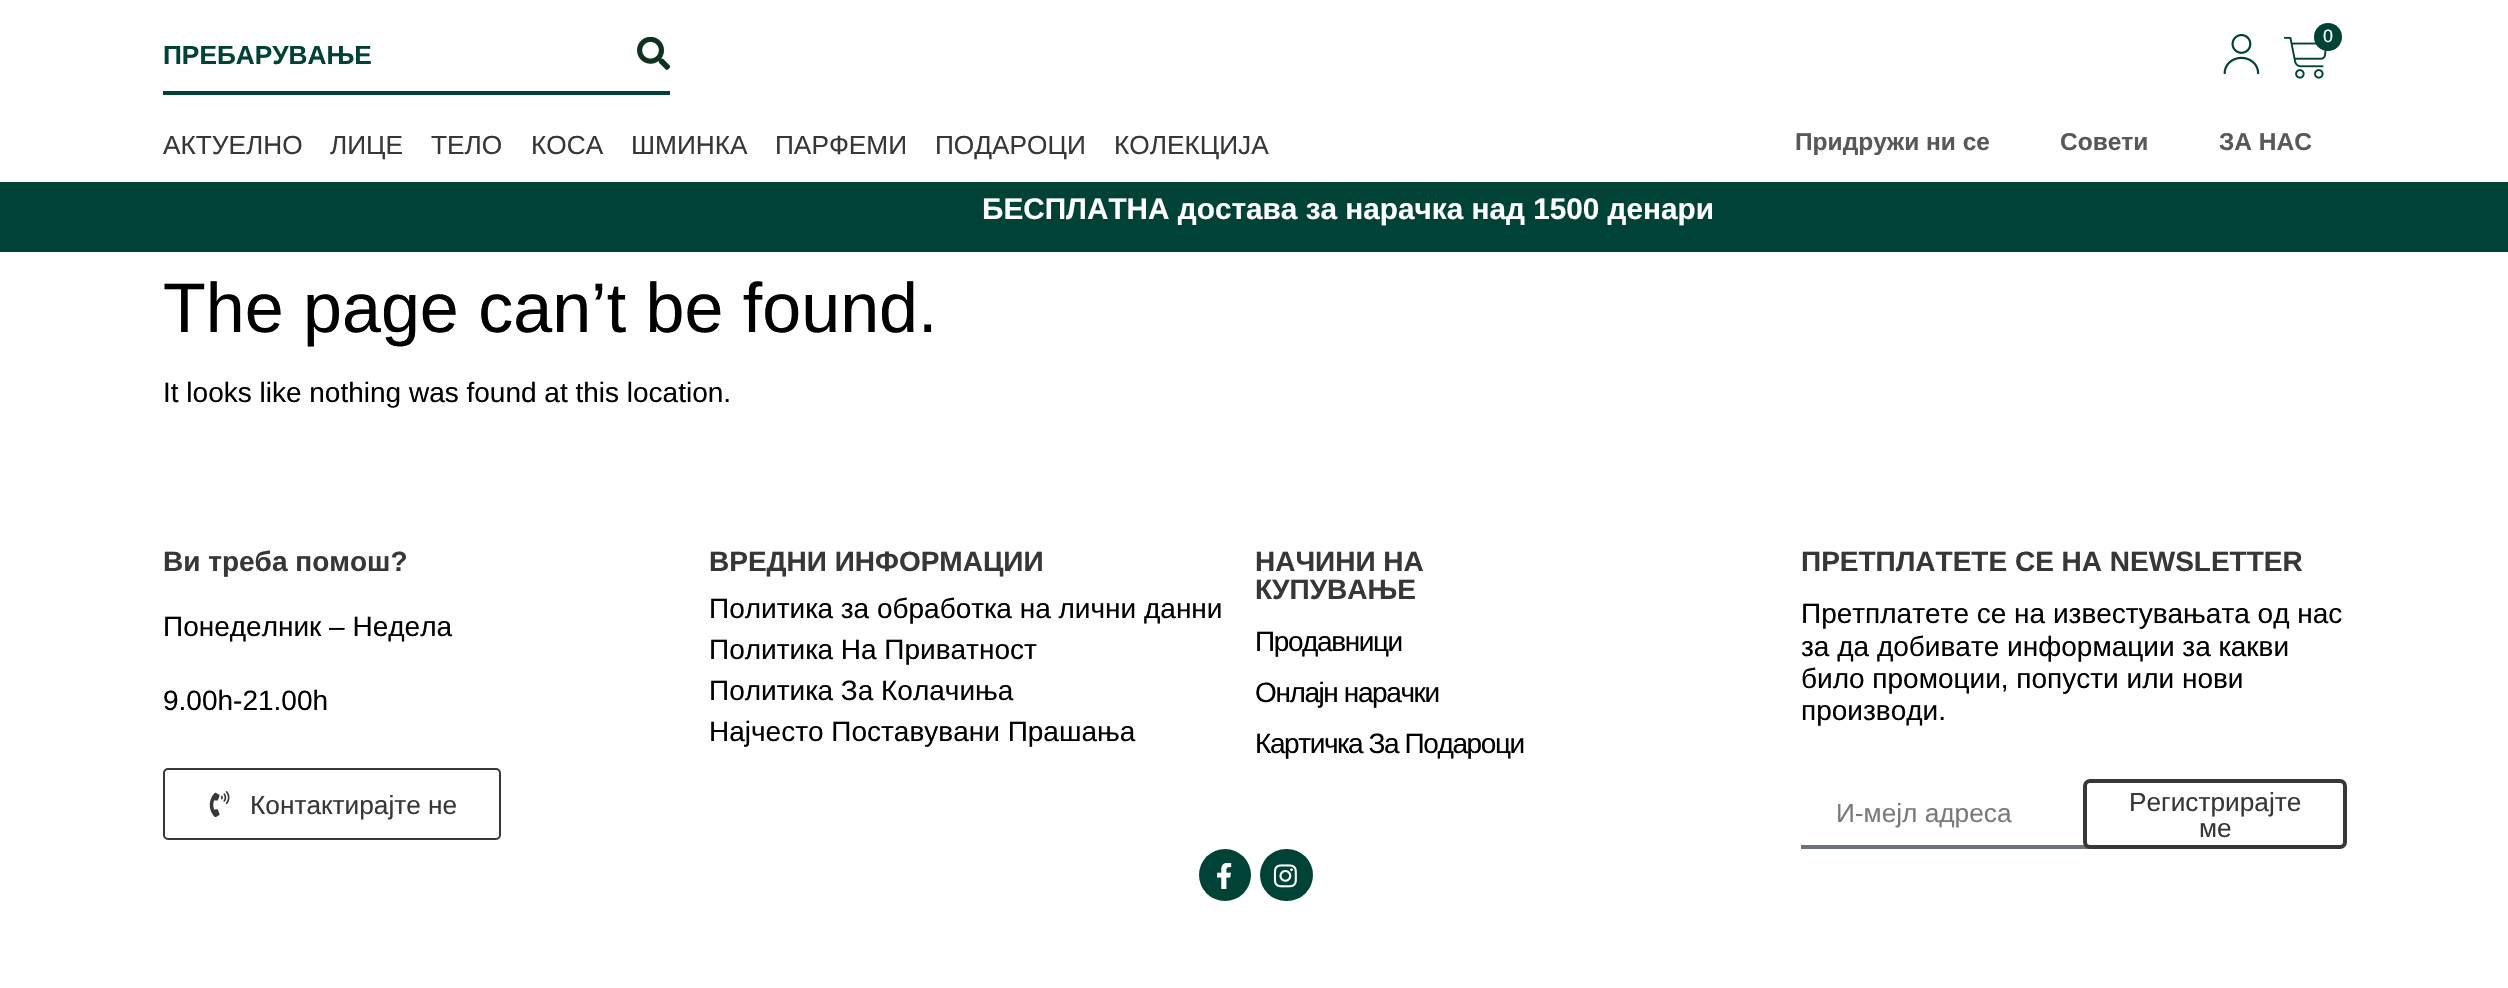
void draw(SkCanvas* c) {
SkPaint p;
p.setAntiAlias(true);
auto F=[&](const char* family, int weight, float size, bool italic = false){SkFontStyle style(weight, SkFontStyle::kNormal_Width,italic ? SkFontStyle::kItalic_Slant : SkFontStyle::kUpright_Slant);SkFont result(fontMgr->matchFamilyStyle(family, style), size);result.setSubpixel(true);return result;};
auto T=[&](const char* s, float x, float y, const SkFont& font){c->drawString(s, x, y, font, p);};
auto L=[&](const char* s, float x, float y, const SkFont& font, const SkPaint& ink, float letter, float word){std::vector<SkGlyphID> glyphs(font.countText(s, strlen(s), SkTextEncoding::kUTF8));std::vector<float> xs(glyphs.size());font.textToGlyphs(s, strlen(s), SkTextEncoding::kUTF8, glyphs);font.getXPos(glyphs, xs, x);float extra = 0;for (size_t i = 0; i < glyphs.size(); i++) {xs[i] += extra;extra += letter + word * (glyphs[i] == font.unicharToGlyph(' '));}c->drawTextBlob(SkTextBlob::MakeFromPosHGlyphs(glyphs, xs, y, font), 0, 0, ink);};
auto R=[&](float x, float y, float w, float h){c->drawRect(SkRect::MakeXYWH(x, y, w, h), p);};
auto Q=[&](float x, float y, float w, float h, float radius){c->drawRoundRect(SkRect::MakeXYWH(x, y, w, h), radius, radius, p);};
auto I=[&](const char* path, float x, float y, float w, float h){auto image = SkImages::DeferredFromEncodedData(SkData::MakeFromFileName(path));c->drawImageRect(image, SkRect::MakeXYWH(x, y, w, h), SkSamplingOptions());};
c->clear(0xffffffff);
I("1.png",2223,34,37,40);
I("2.png",2284,36,43,43);
p.setColor(0xff004236);
c->drawCircle(2328,37,14,p);
auto f1 = F("Liberation Sans",400,18);
p.setColor(0xffffffff);
T("0",2323,42,f1);
p.setColor(0xff004236);
R(163,91,507,4);
auto f2 = F("Liberation Sans",700,26.25);
T("ПРЕБАРУВАЊЕ",163,64,f2);
I("3.png",637,37,33,33);
auto f3 = F("Liberation Sans",400,26.25);
p.setColor(0xff373737);
T("АКТУЕЛНО",163,154,f3);
T("ЛИЦЕ",330,154,f3);
T("ТЕЛО",431,154,f3);
T("КОСА",531,154,f3);
T("ШМИНКА",631,154,f3);
T("ПАРФЕМИ",775,154,f3);
T("ПОДАРОЦИ",935,154,f3);
T("КОЛЕКЦИЈА",1114,154,f3);
auto f4 = F("Liberation Sans",700,24.5);
p.setColor(0xff595858);
T("Придружи ни се",1795,150,f4);
T("Совети",2060,150,f4);
T("ЗА НАС",2219,150,f4);
p.setColor(0xff004236);
R(0,182,2508,70);
auto f5 = F("Liberation Sans",700,29.75);
p.setColor(0xffffffff);
T("БЕСПЛАТНА достава за нарачка над 1500 денари",982,219,f5);
auto f6 = F("Liberation Sans",400,70);
p.setColor(0xff000000);
T("The page can’t be found.",163,332,f6);
auto f7 = F("Liberation Sans",400,28);
T("It looks like nothing was found at this location.",163,402,f7);
auto f8 = F("Liberation Sans",700,28);
p.setColor(0xff373737);
T("Ви треба помош?",163,571,f8);
p.setColor(0xff000000);
T("Понеделник – Недела",163,636,f7);
T("9.00h-21.00h",163,710,f7);
p.setStroke(true);
p.setStrokeWidth(2);
p.setColor(0xff373737);
c->drawRoundRect(SkRect::MakeXYWH(164,769,336,70),4,4,p);
I("4.png",209,791,21,26);
p.setStroke(false);
T("Контактирајте не",250,814,f3);
T("ВРЕДНИ ИНФОРМАЦИИ",709,571,f8);
p.setColor(0xff000000);
T("Политика за обработка на лични данни",709,618,f7);
T("Политика На Приватност",709,659,f7);
T("Политика За Колачиња",709,700,f7);
T("Најчесто Поставувани Прашања",709,741,f7);
p.setColor(0xff373737);
T("НАЧИНИ НА",1255,571,f8);
T("КУПУВАЊЕ",1255,599,f8);
p.setColor(0xff000000);
L("Продавници",1255,651,f7,p,-1.4,0);
L("Oнлајн нарачки",1255,702,f7,p,-1.4,0);
L("Картичка За Подароци",1255,753,f7,p,-1.4,0);
p.setColor(0xff373737);
T("ПРЕТПЛАТЕТЕ СЕ НА NEWSLETTER",1801,571,f8);
p.setColor(0xff000000);
T("Претплатете се на известувањата од нас",1801,623,f7);
T("за да добивате информации за какви",1801,656,f7);
T("било промоции, попусти или нови",1801,688,f7);
T("производи.",1801,720,f7);
p.setColor(0xff69727d);
R(1801,845,289,4);
p.setColor(0xff797a7c);
T("И-мејл адреса",1836,822,f3);
p.setColor(0xffffffff);
c->drawRoundRect(SkRect::MakeXYWH(2085,781,260,66),5,5,p);
p.setStroke(true);
p.setStrokeWidth(4);
p.setColor(0xff373737);
c->drawRoundRect(SkRect::MakeXYWH(2085,781,260,66),5,5,p);
p.setStroke(false);
T("Регистрирајте",2129,811,f3);
T("ме",2199,837,f3);
p.setColor(0xff004236);
c->drawCircle(1225,875,26,p);
I("5.png",1217,863,15,26);
Q(1260,849,53,52,26);
I("6.png",1273,864,24,24);
}
